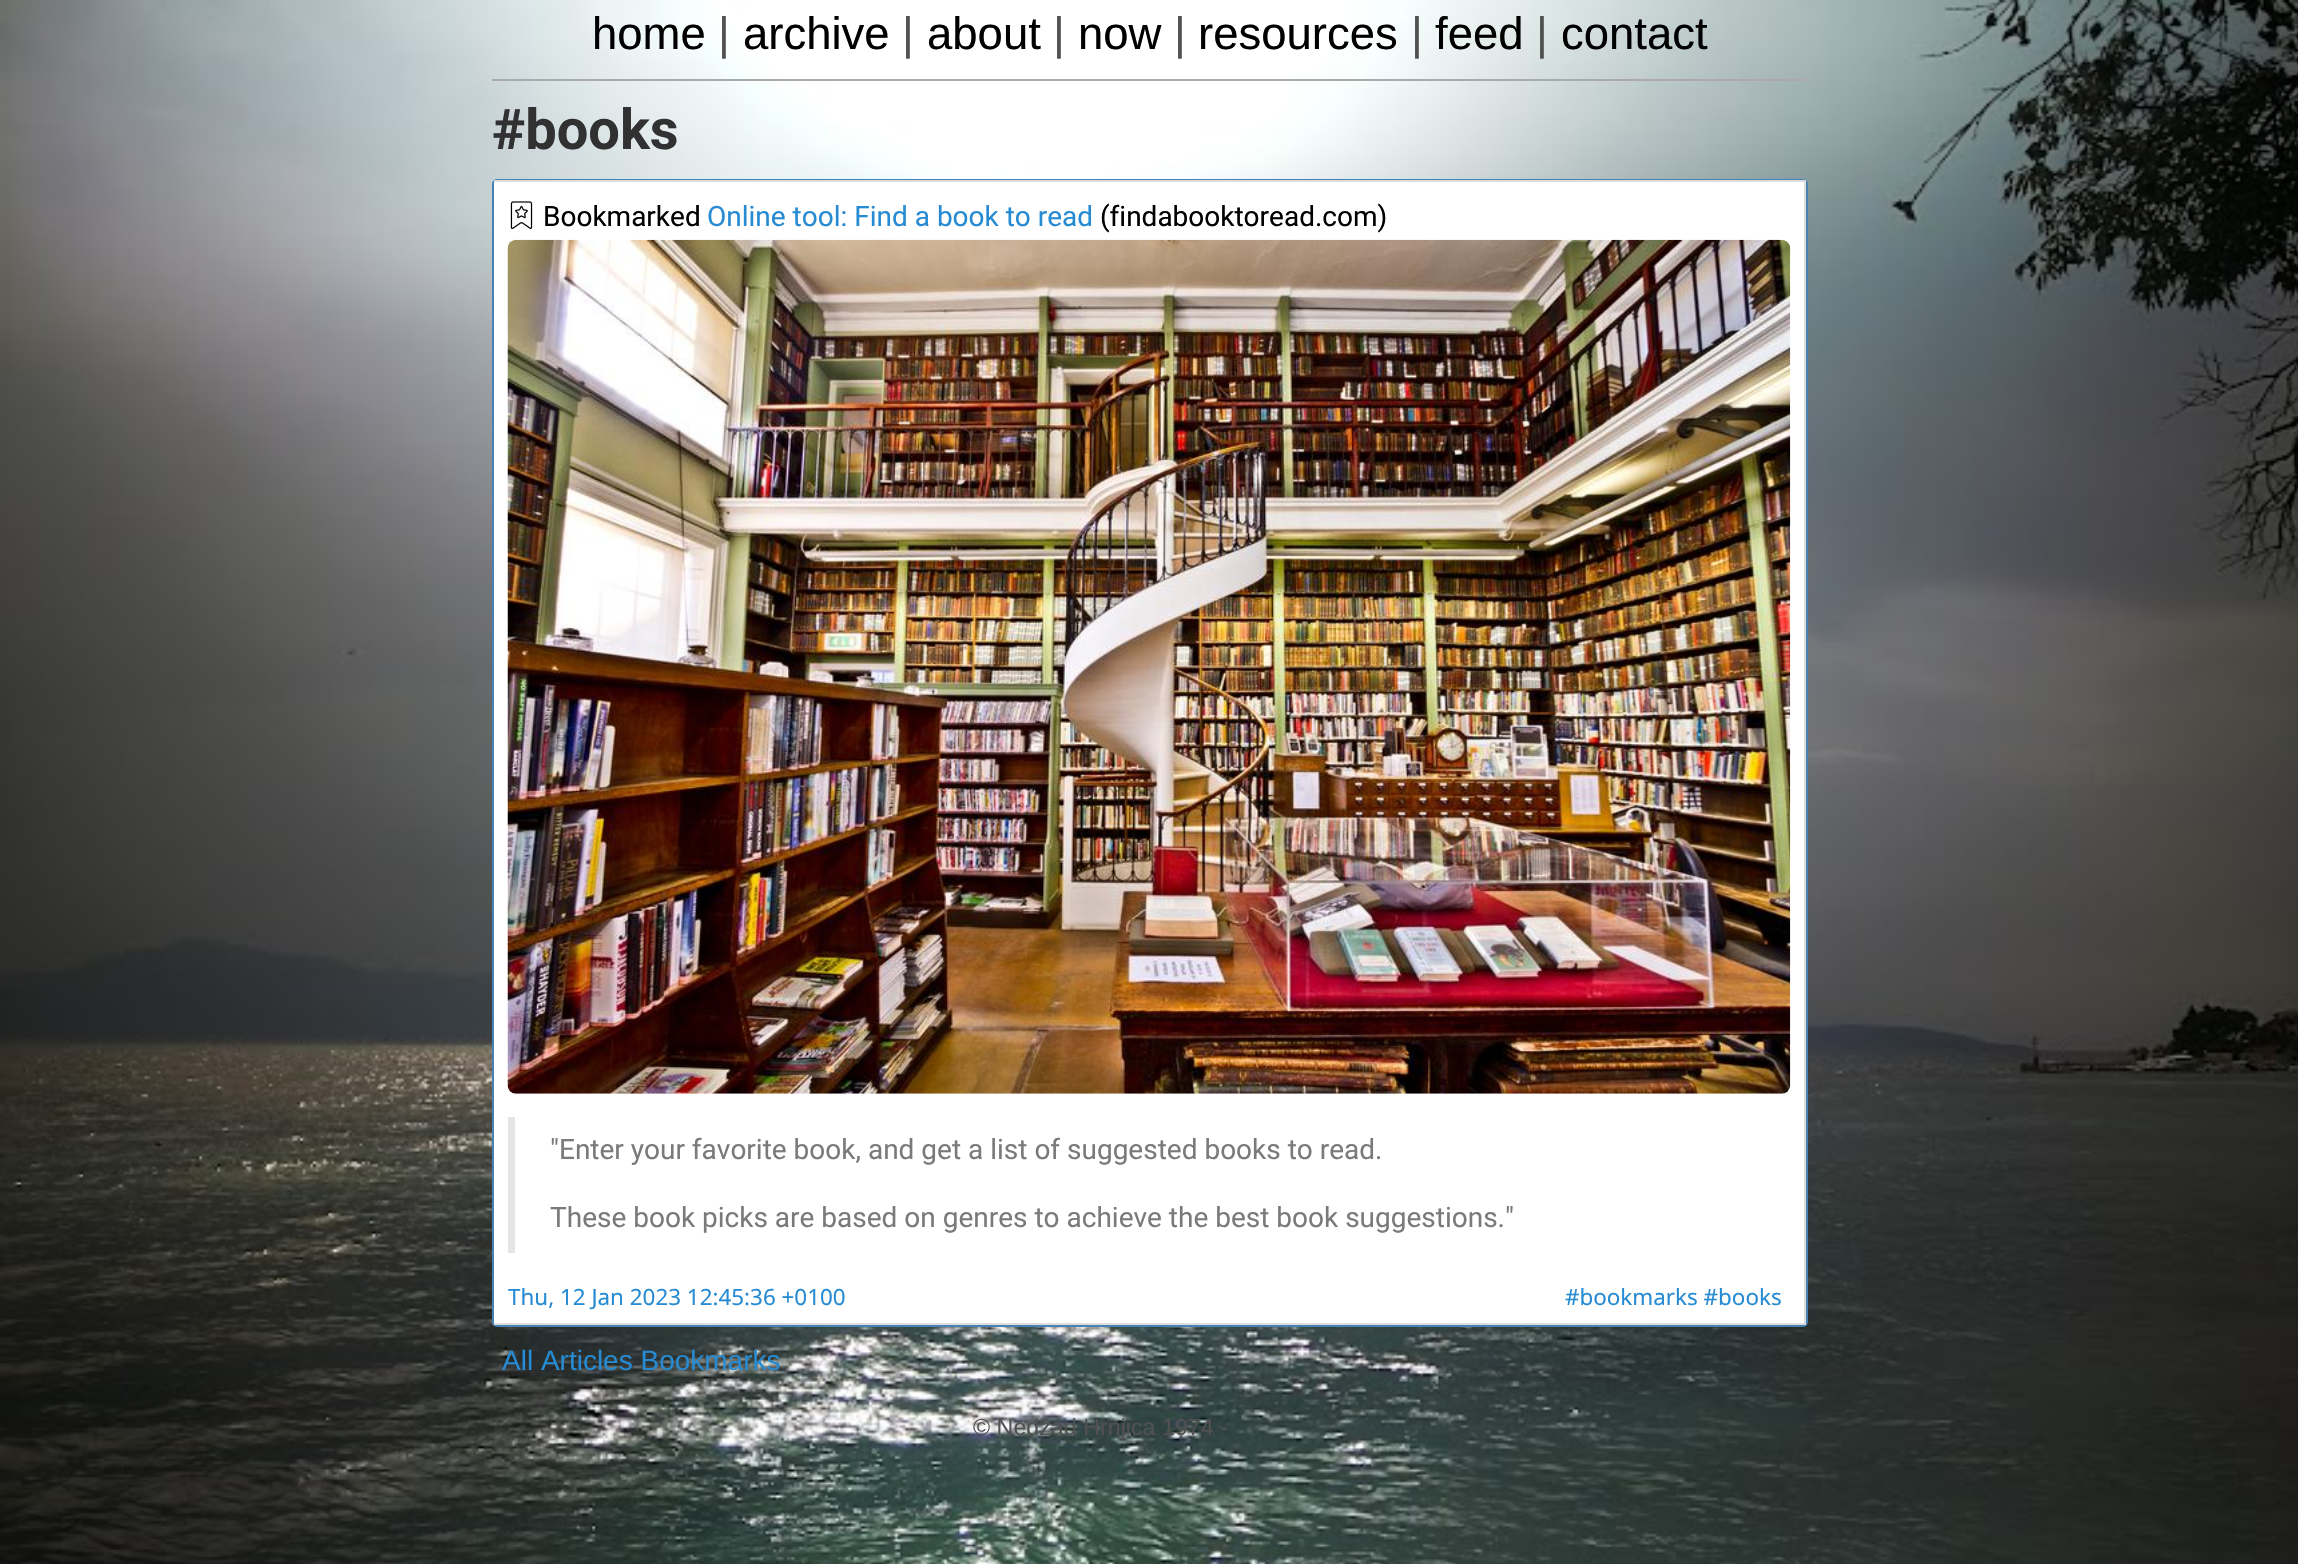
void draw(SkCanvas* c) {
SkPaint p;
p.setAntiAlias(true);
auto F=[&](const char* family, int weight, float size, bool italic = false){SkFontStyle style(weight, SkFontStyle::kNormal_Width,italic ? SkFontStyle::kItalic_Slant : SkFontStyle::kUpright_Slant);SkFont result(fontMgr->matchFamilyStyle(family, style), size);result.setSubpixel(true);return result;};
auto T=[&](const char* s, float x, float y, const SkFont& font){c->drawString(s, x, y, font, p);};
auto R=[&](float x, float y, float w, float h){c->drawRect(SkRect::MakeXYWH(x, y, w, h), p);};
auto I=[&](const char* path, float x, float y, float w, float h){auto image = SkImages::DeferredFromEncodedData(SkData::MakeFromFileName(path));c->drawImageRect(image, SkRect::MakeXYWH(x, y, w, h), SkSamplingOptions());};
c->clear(0xffffffff);
I("1.png",0,0,2298,1564);
auto f1 = F("Liberation Sans",400,45.5);
p.setColor(0xff000000);
T("home",592,49,f1);
p.setColor(0xff515151);
T("|",718,49,f1);
p.setColor(0xff000000);
T("archive",743,49,f1);
p.setColor(0xff515151);
T("|",902,49,f1);
p.setColor(0xff000000);
T("about",927,49,f1);
p.setColor(0xff515151);
T("|",1053,49,f1);
p.setColor(0xff000000);
T("now",1078,49,f1);
p.setColor(0xff515151);
T("|",1174,49,f1);
p.setColor(0xff000000);
T("resources",1198,49,f1);
p.setColor(0xff515151);
T("|",1411,49,f1);
p.setColor(0xff000000);
T("feed",1435,49,f1);
p.setColor(0xff515151);
T("|",1536,49,f1);
p.setColor(0xff000000);
T("contact",1561,49,f1);
p.setColor(0xffaaaaaa);
R(492,79,1316,2);
auto f2 = F("Roboto",700,56);
p.setColor(0xff313131);
T("#books",492,149,f2);
p.setStroke(true);
p.setStrokeWidth(2);
p.setColor(0xff4682b4);
c->drawRoundRect(SkRect::MakeXYWH(493,180,1314,1146),4,4,p);
p.setStroke(false);
p.setColor(0xffffffff);
R(494,182,1310,1141);
p.setColor(0xffdddddd);
R(494,180,1312,2);
R(1804,180,2,1145);
R(494,1323,1312,2);
I("2.png",510,201,23,28);
auto f3 = F("Roboto",400,28);
p.setColor(0xff000000);
T("Bookmarked",543,226,f3);
p.setColor(0xff268bd2);
T("Online tool: Find a book to read",707,226,f3);
p.setColor(0xff000000);
T("(findabooktoread.com)",1100,226,f3);
I("3.png",507,239,1284,855);
p.setColor(0xffe5e5e5);
R(508,1117,7,136);
p.setColor(0xff7a7a7a);
T("\"Enter your favorite book, and get a list of suggested books to read.",550,1159,f3);
T("These book picks are based on genres to achieve the best book suggestions.\"",550,1227,f3);
auto f4 = F("Noto Sans",400,22.4);
p.setColor(0xff268bd2);
T("Thu, 12 Jan 2023 12:45:36 +0100",508,1305,f4);
T("#bookmarks #books",1565,1305,f4);
auto f5 = F("Liberation Sans",400,28);
T("All Articles Bookmarks",502,1370,f5);
auto f6 = F("Liberation Sans",400,23.25);
p.setColor(0xff515151);
T("© Nedžad Hrnjica 1974 -",973,1435,f6);
}
